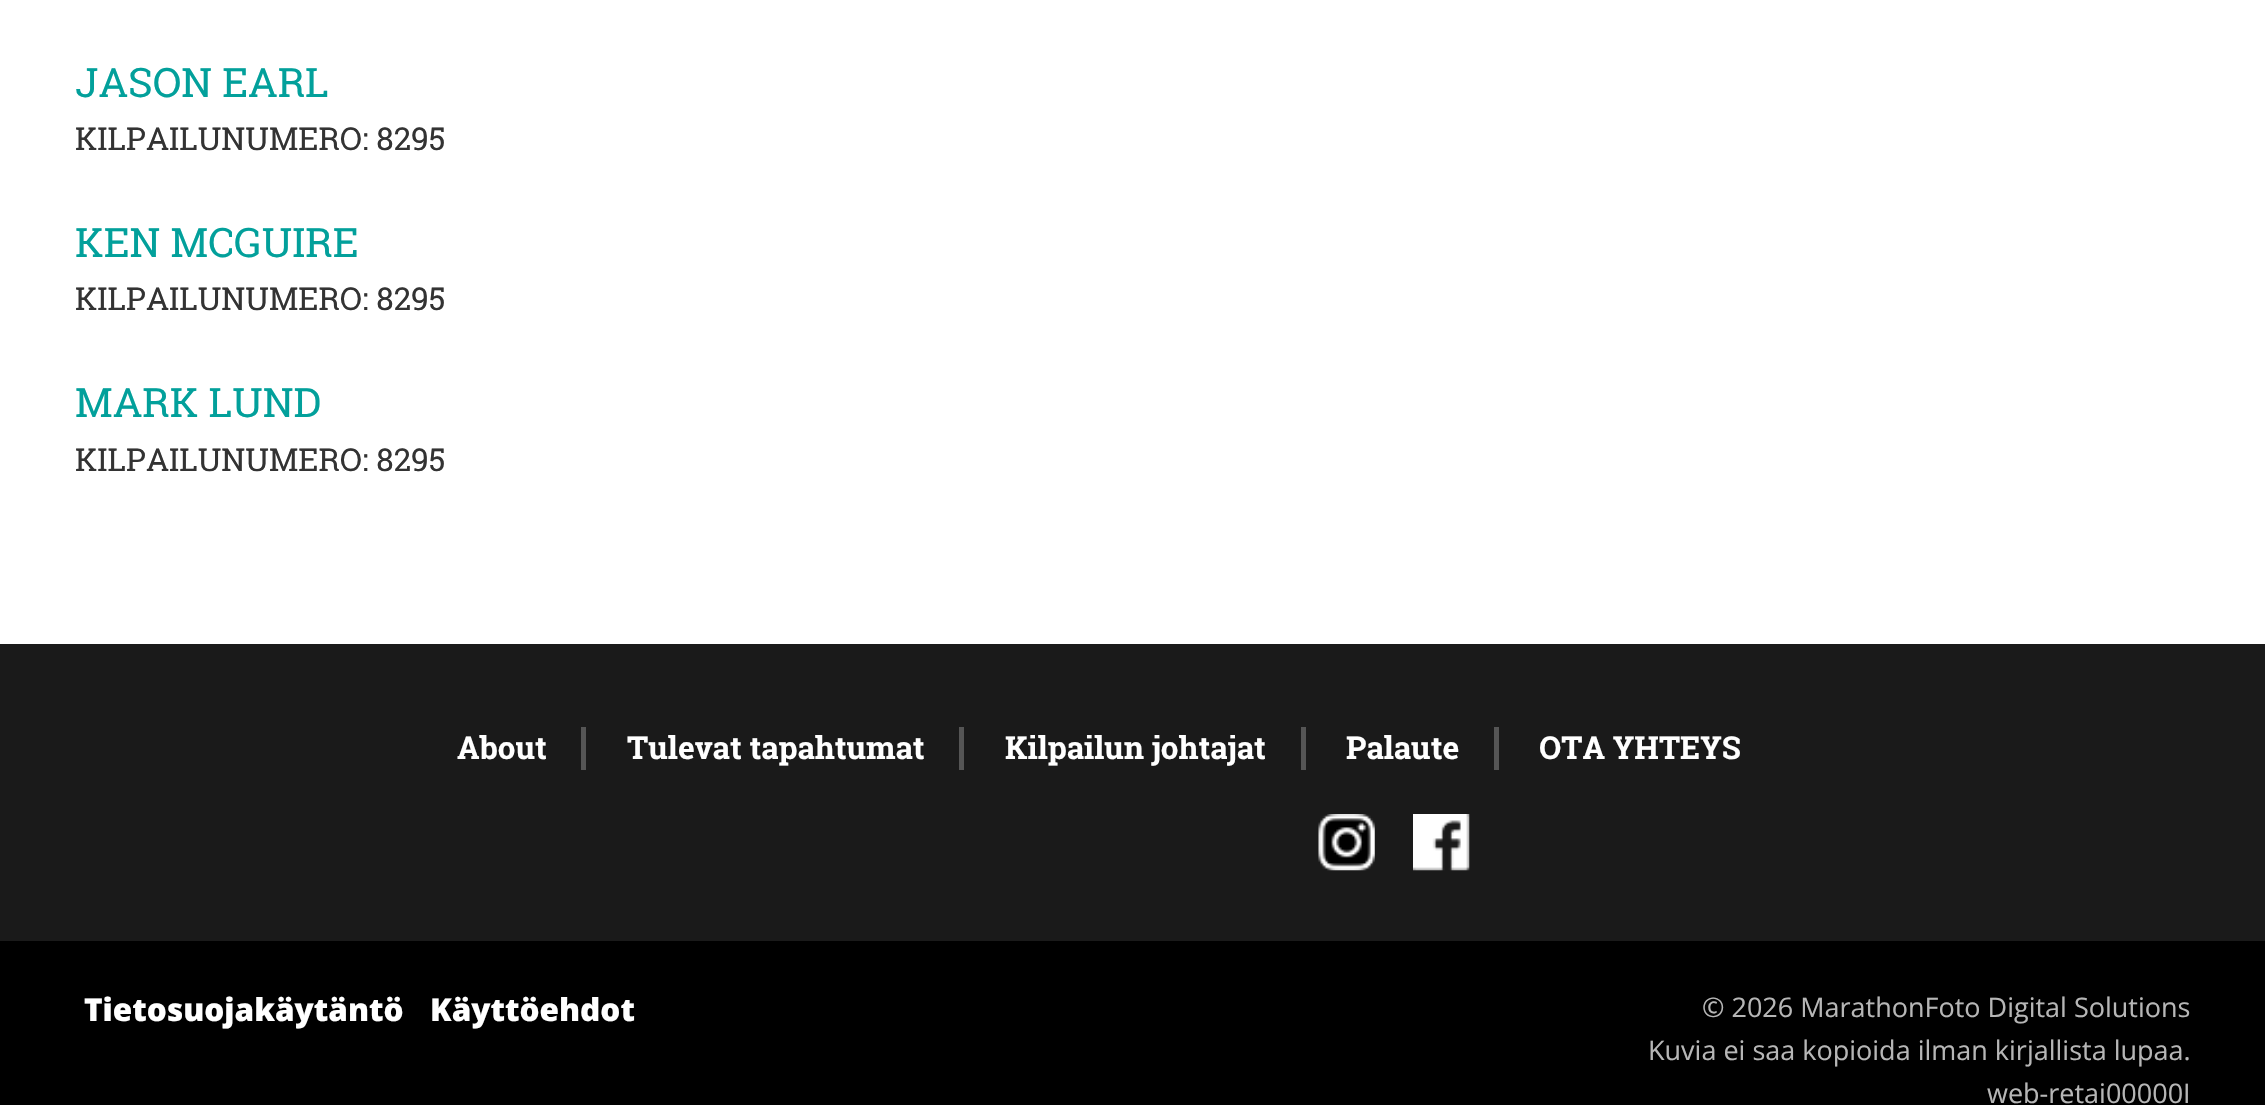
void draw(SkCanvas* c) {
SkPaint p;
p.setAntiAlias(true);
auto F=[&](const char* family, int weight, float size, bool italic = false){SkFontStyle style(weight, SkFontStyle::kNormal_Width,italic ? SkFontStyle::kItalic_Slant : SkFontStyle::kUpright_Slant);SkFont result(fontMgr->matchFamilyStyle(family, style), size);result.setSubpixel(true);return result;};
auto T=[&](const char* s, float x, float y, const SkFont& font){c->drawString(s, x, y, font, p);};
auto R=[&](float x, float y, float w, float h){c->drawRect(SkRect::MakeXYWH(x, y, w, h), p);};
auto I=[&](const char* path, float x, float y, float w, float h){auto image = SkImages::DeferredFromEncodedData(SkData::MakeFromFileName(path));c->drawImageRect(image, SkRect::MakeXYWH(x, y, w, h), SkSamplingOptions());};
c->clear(0xffffffff);
auto f1 = F("Roboto Slab",400,40.5);
p.setColor(0xff02a09b);
T("JASON EARL",75,97,f1);
auto f2 = F("Roboto Slab",400,31.5);
p.setColor(0xff333333);
T("KILPAILUNUMERO: 8295",75,150,f2);
p.setColor(0xff02a09b);
T("KEN MCGUIRE",75,257,f1);
p.setColor(0xff333333);
T("KILPAILUNUMERO: 8295",75,310,f2);
p.setColor(0xff02a09b);
T("MARK LUND",75,417,f1);
p.setColor(0xff333333);
T("KILPAILUNUMERO: 8295",75,471,f2);
p.setColor(0xff1a1a1a);
R(0,644,2265,297);
auto f3 = F("Roboto Slab",700,31.5);
p.setColor(0xffffffff);
T("About",457,759,f3);
p.setColor(0xff555555);
R(581,727,5,43);
p.setColor(0xffffffff);
T("Tulevat tapahtumat",627,759,f3);
p.setColor(0xff555555);
R(959,727,5,43);
p.setColor(0xffffffff);
T("Kilpailun johtajat",1005,759,f3);
p.setColor(0xff555555);
R(1301,727,5,43);
p.setColor(0xffffffff);
T("Palaute",1346,759,f3);
p.setColor(0xff555555);
R(1494,727,5,43);
p.setColor(0xffffffff);
T("OTA YHTEYS",1539,759,f3);
I("1.png",1318,814,57,57);
I("2.png",1413,814,57,57);
p.setColor(0xff000000);
R(0,941,2265,164);
auto f4 = F("Open Sans",800,31.5);
p.setColor(0xffffffff);
T("Tietosuojakäytäntö",84,1021,f4);
T("Käyttöehdot",430,1021,f4);
auto f5 = F("Open Sans",400,27);
p.setColor(0xffb6b6b6);
T("© 2026 MarathonFoto Digital Solutions",1702,1017,f5);
T("Kuvia ei saa kopioida ilman kirjallista lupaa.",1648,1060,f5);
T("web-retai00000I",1987,1103,f5);
}
